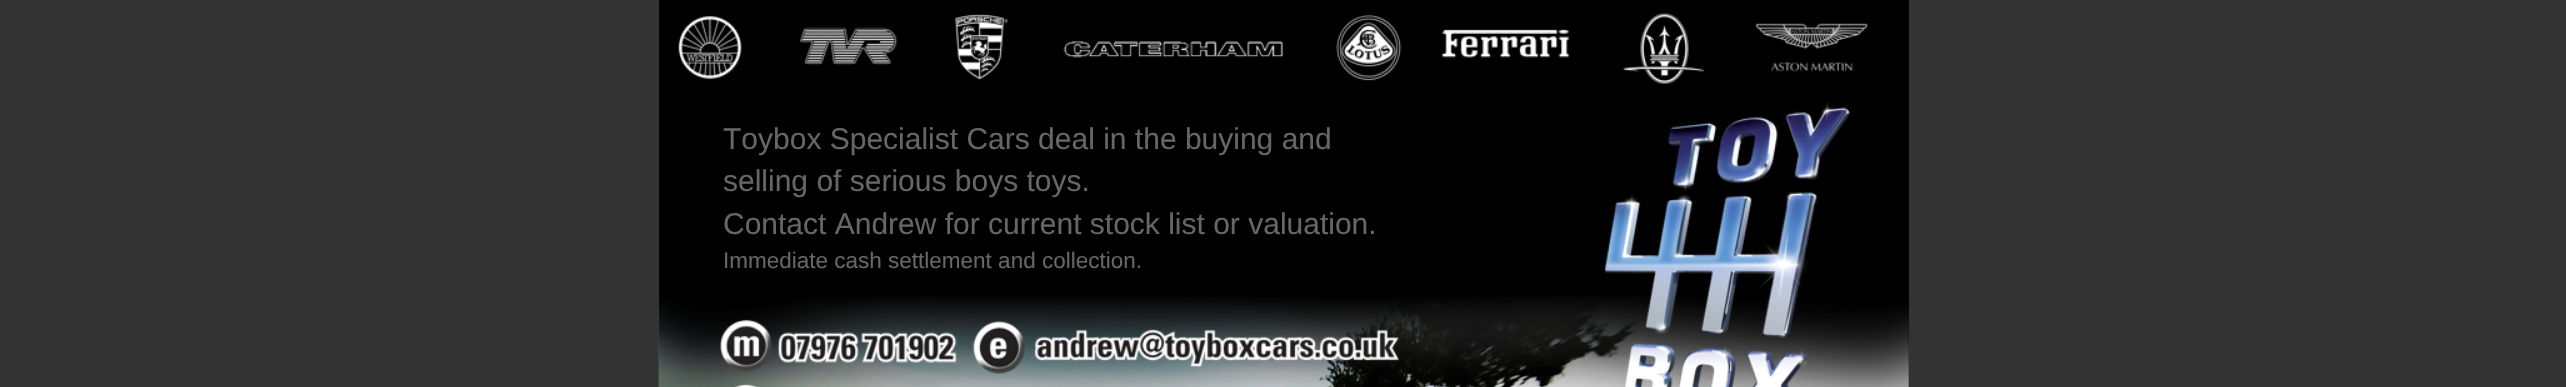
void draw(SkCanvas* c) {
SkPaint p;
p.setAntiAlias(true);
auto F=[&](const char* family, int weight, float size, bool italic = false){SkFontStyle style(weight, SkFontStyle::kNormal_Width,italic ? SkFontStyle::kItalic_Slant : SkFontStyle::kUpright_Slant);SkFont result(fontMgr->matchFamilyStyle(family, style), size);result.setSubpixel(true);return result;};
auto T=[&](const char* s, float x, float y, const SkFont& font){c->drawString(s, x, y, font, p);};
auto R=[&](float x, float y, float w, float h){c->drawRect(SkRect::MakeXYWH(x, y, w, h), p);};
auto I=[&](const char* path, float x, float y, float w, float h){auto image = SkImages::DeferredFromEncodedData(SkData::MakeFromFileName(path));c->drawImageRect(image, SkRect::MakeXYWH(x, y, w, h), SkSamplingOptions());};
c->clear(0xff333333);
p.setColor(0xff000000);
R(659,0,1250,387);
I("1.png",678,16,64,63);
I("2.png",799,27,99,38);
I("3.png",954,14,55,66);
I("4.png",1063,41,221,17);
I("5.png",1336,15,66,66);
I("6.png",1441,29,128,29);
I("7.png",1623,12,82,72);
I("8.png",1755,23,113,49);
auto f1 = F("Liberation Sans",400,30);
p.setColor(0xff666666);
T("Toybox Specialist Cars deal in the buying and",723,149,f1);
T("selling of serious boys toys.",723,191,f1);
T("Contact Andrew for current stock list or valuation.",723,234,f1);
auto f2 = F("Liberation Sans",400,22.5);
T("Immediate cash settlement and collection.",723,268,f2);
I("10.png",658,296,1251,91);
I("9.png",1604,102,247,285);
I("11.png",720,319,53,53);
I("12.png",777,332,180,31);
I("13.png",972,321,53,53);
I("14.png",1034,329,365,38);
I("15.png",735,384,23,3);
}
